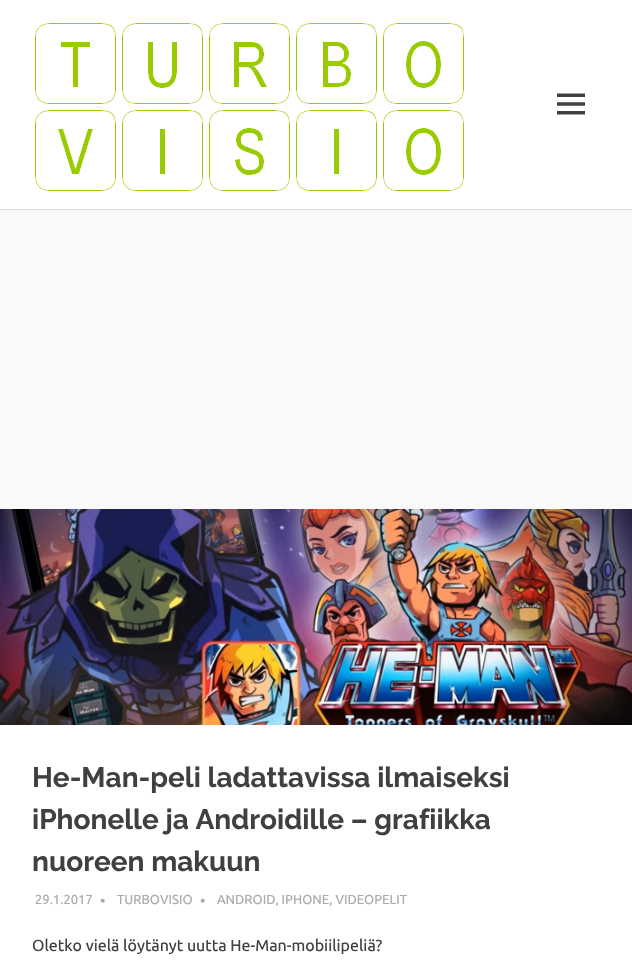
void draw(SkCanvas* c) {
SkPaint p;
p.setAntiAlias(true);
auto F=[&](const char* family, int weight, float size, bool italic = false){SkFontStyle style(weight, SkFontStyle::kNormal_Width,italic ? SkFontStyle::kItalic_Slant : SkFontStyle::kUpright_Slant);SkFont result(fontMgr->matchFamilyStyle(family, style), size);result.setSubpixel(true);return result;};
auto T=[&](const char* s, float x, float y, const SkFont& font){c->drawString(s, x, y, font, p);};
auto R=[&](float x, float y, float w, float h){c->drawRect(SkRect::MakeXYWH(x, y, w, h), p);};
auto I=[&](const char* path, float x, float y, float w, float h){auto image = SkImages::DeferredFromEncodedData(SkData::MakeFromFileName(path));c->drawImageRect(image, SkRect::MakeXYWH(x, y, w, h), SkSamplingOptions());};
c->clear(0xfff9f9f9);
p.setColor(0xffffffff);
R(0,0,632,209);
p.setColor(0xffe0e0e0);
R(0,209,632,1);
I("1.png",35,23,429,168);
I("2.png",557,93,28,22);
I("3.png",0,509,632,216);
p.setColor(0xffffffff);
R(0,725,632,247);
auto f1 = F("Raleway",100,28);
p.setColor(0xff404040);
T("He-Man-peli ladattavissa ilmaiseksi",32,787,f1);
T("iPhonelle ja Androidille – grafiikka",32,829,f1);
T("nuoreen makuun",32,871,f1);
auto f2 = F("Ubuntu",400,13);
p.setColor(0xffaaaaaa);
T("29.1.2017",35,904,f2);
auto f3 = F("Ubuntu",400,15);
T("•",100,906,f3);
T("TURBOVISIO",117,904,f2);
T("•",200,906,f3);
T("ANDROID, IPHONE, VIDEOPELIT",217,904,f2);
auto f4 = F("Ubuntu",400,16);
p.setColor(0xff404040);
T("Oletko vielä löytänyt uutta He-Man-mobiilipeliä?",32,951,f4);
}
